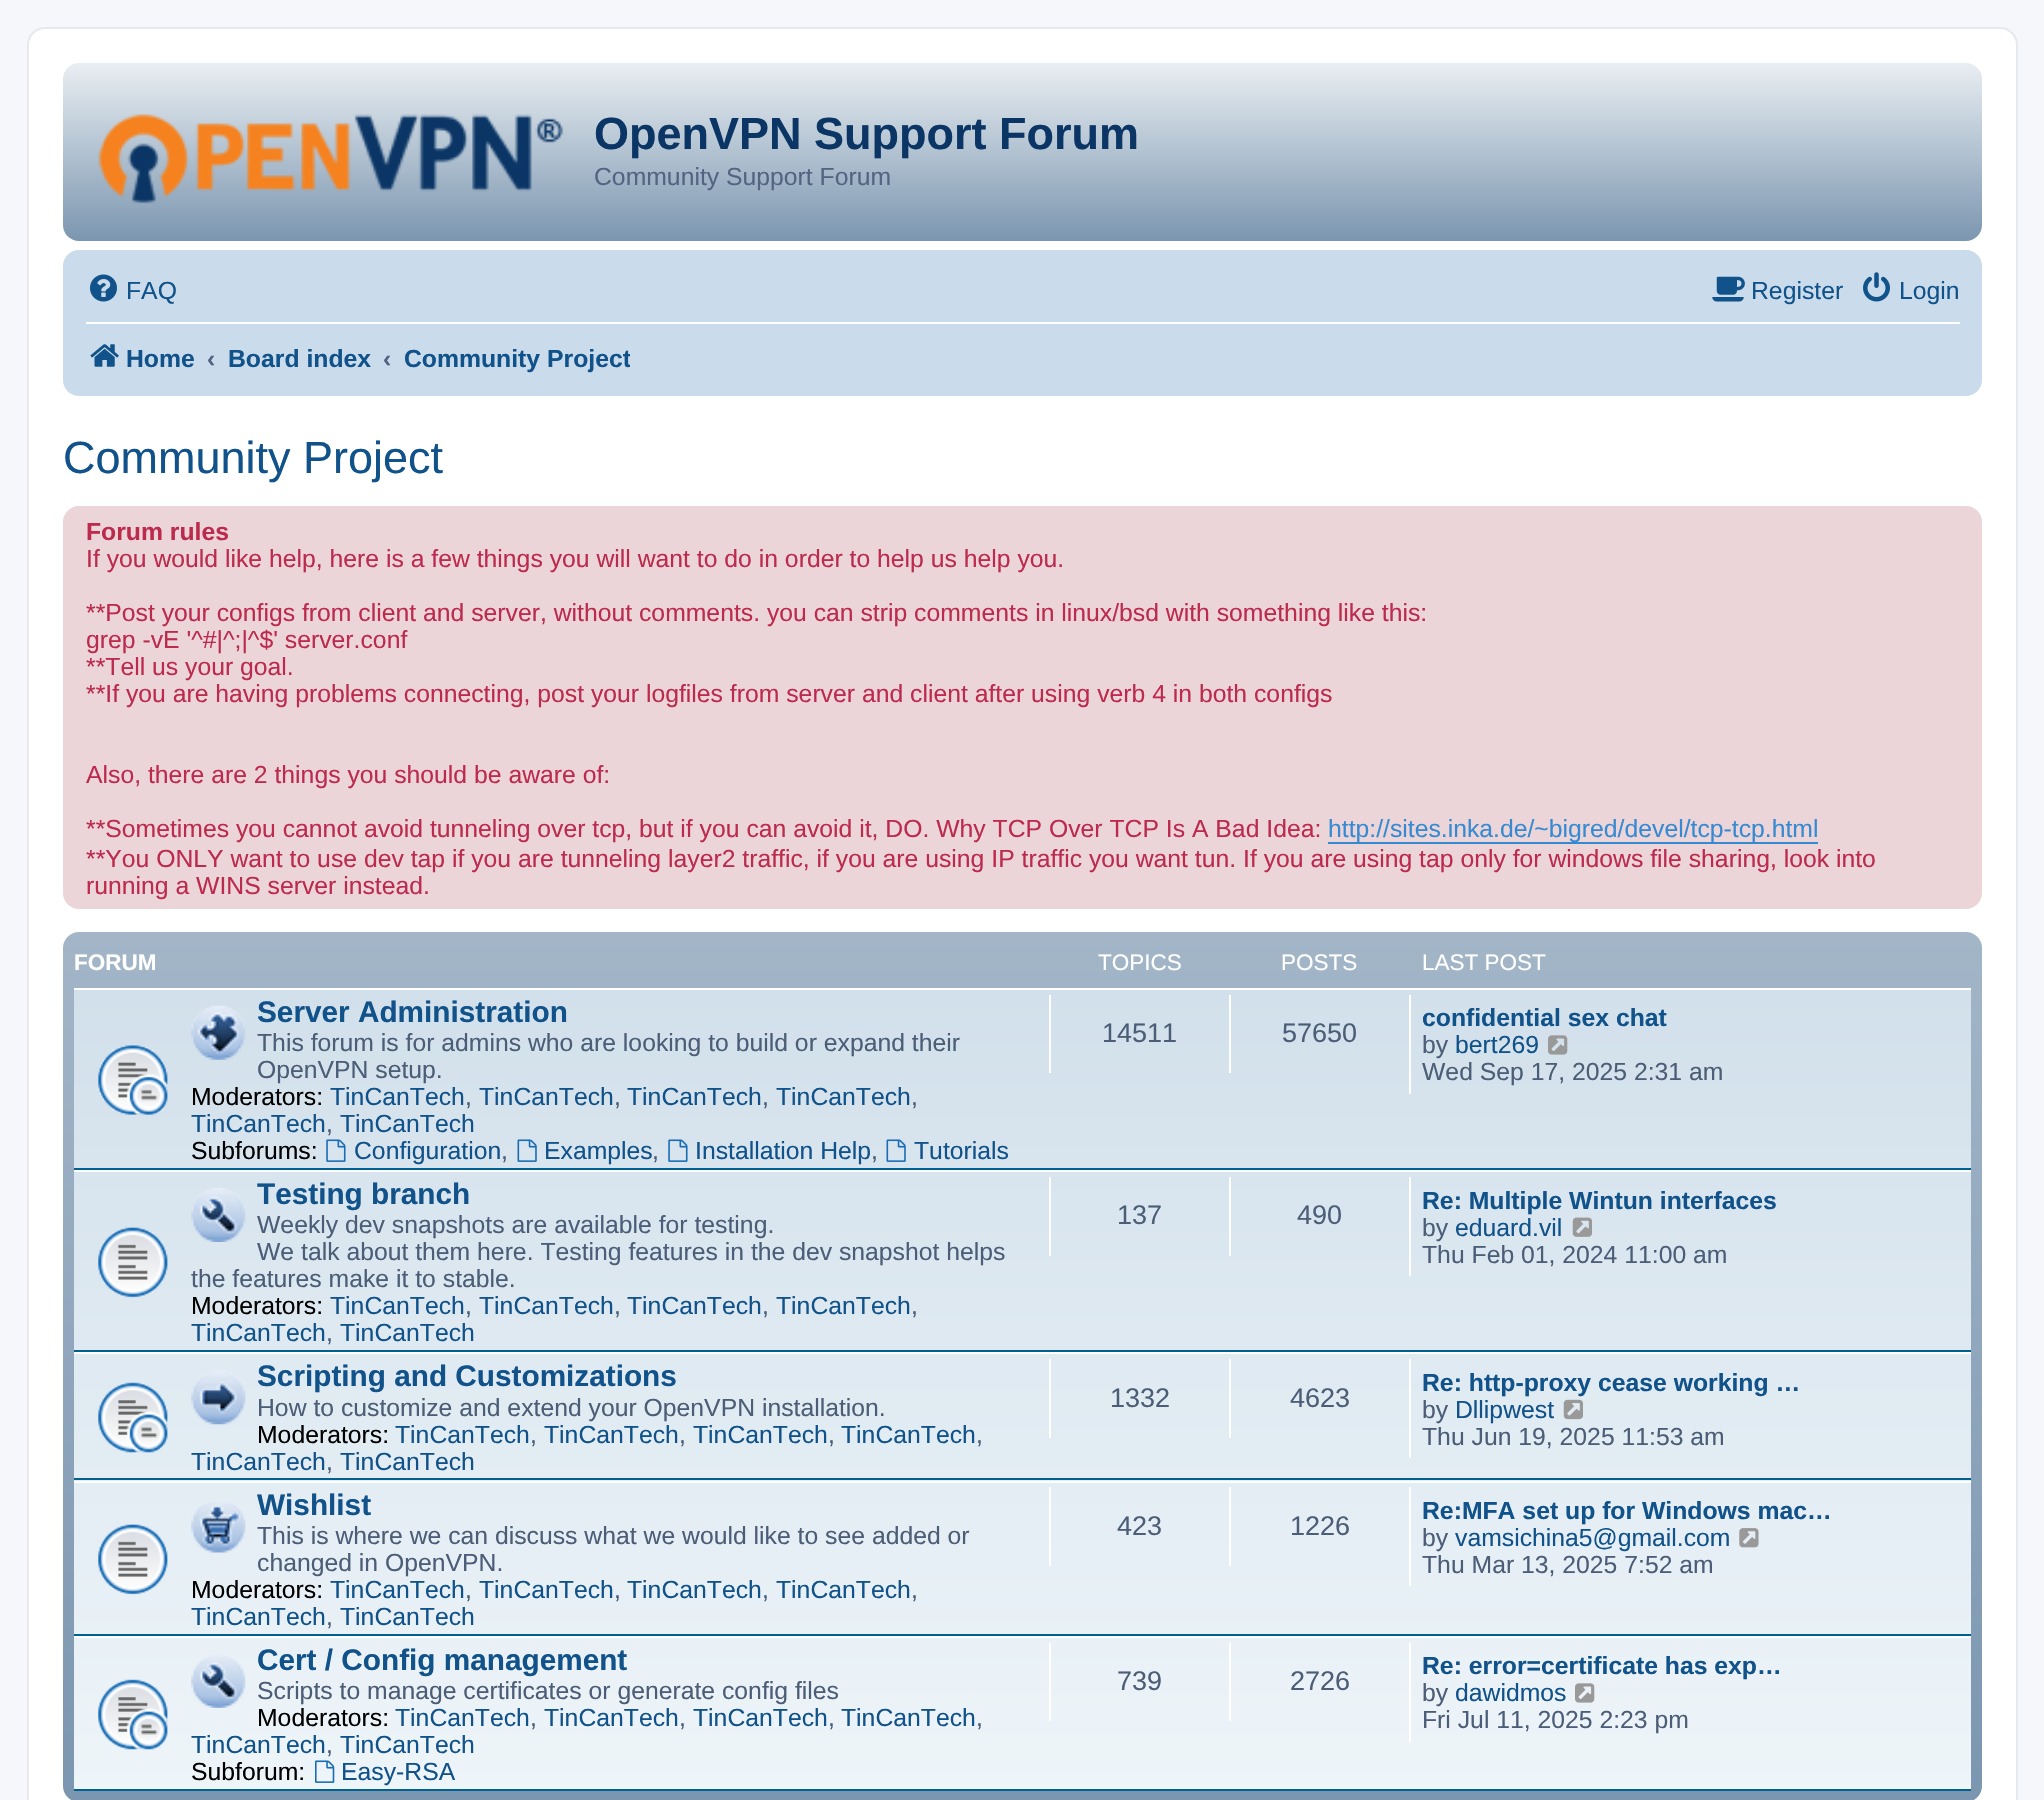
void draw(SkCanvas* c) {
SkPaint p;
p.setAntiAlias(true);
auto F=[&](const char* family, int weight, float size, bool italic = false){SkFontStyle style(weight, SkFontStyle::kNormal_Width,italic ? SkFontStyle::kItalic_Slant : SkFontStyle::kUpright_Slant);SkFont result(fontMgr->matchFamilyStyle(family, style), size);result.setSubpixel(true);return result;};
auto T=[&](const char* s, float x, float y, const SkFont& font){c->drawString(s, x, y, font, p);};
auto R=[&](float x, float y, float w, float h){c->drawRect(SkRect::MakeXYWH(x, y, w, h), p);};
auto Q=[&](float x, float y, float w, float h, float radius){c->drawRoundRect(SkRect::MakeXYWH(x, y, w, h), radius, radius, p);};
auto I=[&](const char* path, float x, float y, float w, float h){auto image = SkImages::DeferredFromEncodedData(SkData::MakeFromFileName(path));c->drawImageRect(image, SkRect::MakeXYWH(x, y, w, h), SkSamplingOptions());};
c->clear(0xfff5f7fa);
p.setColor(0xffffffff);
c->drawRoundRect(SkRect::MakeXYWH(28,28,1989,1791),17,17,p);
p.setStroke(true);
p.setStrokeWidth(2);
p.setColor(0xffe6e9ed);
c->drawRoundRect(SkRect::MakeXYWH(28,28,1989,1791),17,17,p);
p.setStroke(false);
{
const SkColor colors[] = {0xffe9eef2,0xff7b96b0};
const float stops[] = {0,1};
const SkPoint ends[] = {{1023,63}, {1023,241}};
p.setShader(SkGradientShader::MakeLinear(ends, colors, stops, 2, SkTileMode::kClamp));
p.setAlpha(255);
}
Q(63,63,1919,178,16);
I("1.png",98,114,466,90);
auto f1 = F("Liberation Sans",700,45);
p.setShader(nullptr);
p.setColor(0xff0a3565);
T("OpenVPN Support Forum",594,149,f1);
auto f2 = F("Liberation Sans",400,24.75);
p.setColor(0xff536482);
T("Community Support Forum",594,185,f2);
p.setColor(0xffcadceb);
Q(63,250,1919,146,16);
I("2.png",90,274,27,28);
p.setColor(0xff105289);
T("FAQ",126,299,f2);
I("3.png",1712,276,33,26);
T("Register",1751,299,f2);
I("4.png",1863,272,27,30);
T("Login",1899,299,f2);
p.setColor(0xffffffff);
R(86,322,1874,2);
I("5.png",90,344,29,23);
auto f3 = F("Liberation Sans",700,24.75);
p.setColor(0xff105289);
T("Home",126,367,f3);
p.setColor(0xff536482);
T("‹",207,367,f3);
p.setColor(0xff105289);
T("Board index",228,367,f3);
p.setColor(0xff536482);
T("‹",383,367,f3);
c->save();
c->clipRect(SkRect::MakeXYWH(403,331,227,54));
p.setColor(0xff105289);
T("Community Project",404,367,f3);
c->restore();
auto f4 = F("Liberation Sans",400,45);
T("Community Project",63,473,f4);
p.setColor(0xffecd5d8);
Q(63,506,1919,403,16);
p.setColor(0xffbc2a4d);
T("Forum rules",86,540,f3);
T("If you would like help, here is a few things you will want to do in order to help us help you.",86,567,f2);
T("**Post your configs from client and server, without comments. you can strip comments in linux/bsd with something like this:",86,621,f2);
T("grep -vE '^#|^;|^$' server.conf",86,648,f2);
T("**Tell us your goal.",86,675,f2);
T("**If you are having problems connecting, post your logfiles from server and client after using verb 4 in both configs",86,702,f2);
T("Also, there are 2 things you should be aware of:",86,783,f2);
T("**Sometimes you cannot avoid tunneling over tcp, but if you can avoid it, DO. Why TCP Over TCP Is A Bad Idea:",86,837,f2);
p.setColor(0xff368ad2);
R(1328,842,490,2);
T("http://sites.inka.de/~bigred/devel/tcp-tcp.html",1328,837,f2);
p.setColor(0xffbc2a4d);
T("**You ONLY want to use dev tap if you are tunneling layer2 traffic, if you are using IP traffic you want tun. If you are using tap only for windows file sharing, look into",86,867,f2);
T("running a WINS server instead.",86,894,f2);
{
const SkColor colors[] = {0xffa3b6c8,0xff7b96b0};
const float stops[] = {0,1};
const SkPoint ends[] = {{1023,931}, {1023,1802}};
p.setShader(SkGradientShader::MakeLinear(ends, colors, stops, 2, SkTileMode::kClamp));
p.setAlpha(255);
}
Q(63,932,1919,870,16);
auto f5 = F("Liberation Sans",700,22.5);
p.setShader(nullptr);
p.setColor(0xffffffff);
T("FORUM",74,970,f5);
auto f6 = F("Liberation Sans",400,22.5);
T("TOPICS",1098,970,f6);
T("POSTS",1281,970,f6);
T("LAST POST",1422,970,f6);
{
const SkColor colors[] = {0xffd2e0eb,0xffeef5f9};
const float stops[] = {0,1};
const SkPoint ends[] = {{1023,988}, {1023,1791}};
p.setShader(SkGradientShader::MakeLinear(ends, colors, stops, 2, SkTileMode::kClamp));
p.setAlpha(255);
}
R(74,990,1897,799);
p.setShader(nullptr);
p.setColor(0xffffffff);
R(74,988,1897,2);
p.setColor(0xff00608f);
R(74,1168,1897,2);
I("6.png",98,1045,70,70);
I("7.png",191,1005,55,55);
auto f7 = F("Liberation Sans",700,29.75);
p.setColor(0xff105289);
T("Server Administration",257,1022,f7);
p.setColor(0xff4c5d77);
T("This forum is for admins who are looking to build or expand their",257,1051,f2);
T("OpenVPN setup.",257,1078,f2);
p.setColor(0xff000000);
T("Moderators:",191,1105,f2);
p.setColor(0xff105289);
T("TinCanTech",330,1105,f2);
p.setColor(0xff4c5d77);
T(",",465,1105,f2);
p.setColor(0xff105289);
T("TinCanTech",479,1105,f2);
p.setColor(0xff4c5d77);
T(",",614,1105,f2);
p.setColor(0xff105289);
T("TinCanTech",627,1105,f2);
p.setColor(0xff4c5d77);
T(",",762,1105,f2);
p.setColor(0xff105289);
T("TinCanTech",776,1105,f2);
p.setColor(0xff4c5d77);
T(",",911,1105,f2);
p.setColor(0xff105289);
T("TinCanTech",191,1132,f2);
p.setColor(0xff4c5d77);
T(",",326,1132,f2);
p.setColor(0xff105289);
T("TinCanTech",340,1132,f2);
p.setColor(0xff000000);
T("Subforums:",191,1159,f2);
I("8.png",326,1139,20,23);
p.setColor(0xff105289);
T("Configuration",354,1159,f2);
p.setColor(0xff4c5d77);
T(",",501,1159,f2);
I("9.png",517,1139,20,23);
p.setColor(0xff105289);
T("Examples",544,1159,f2);
p.setColor(0xff4c5d77);
T(",",652,1159,f2);
I("8.png",668,1139,20,23);
p.setColor(0xff105289);
T("Installation Help",695,1159,f2);
p.setColor(0xff4c5d77);
T(",",871,1159,f2);
I("9.png",886,1139,20,23);
p.setColor(0xff105289);
T("Tutorials",914,1159,f2);
p.setColor(0xffffffff);
R(1049,995,2,78);
auto f8 = F("Liberation Sans",400,27);
p.setColor(0xff4c5d77);
T("14511",1102,1042,f8);
p.setColor(0xffffffff);
R(1229,995,2,78);
p.setColor(0xff4c5d77);
T("57650",1282,1042,f8);
p.setColor(0xffffffff);
R(1409,995,2,99);
p.setColor(0xff105289);
T("confidential sex chat",1422,1026,f3);
p.setColor(0xff4c5d77);
T("by",1422,1053,f2);
p.setColor(0xff105289);
T("bert269",1455,1053,f2);
I("10.png",1548,1035,20,20);
p.setColor(0xff4c5d77);
T("Wed Sep 17, 2025 2:31 am",1422,1080,f2);
p.setColor(0xffffffff);
R(74,1170,1897,2);
p.setColor(0xff00608f);
R(74,1350,1897,2);
I("11.png",98,1227,70,71);
I("12.png",191,1188,55,54);
p.setColor(0xff105289);
T("Testing branch",257,1204,f7);
p.setColor(0xff4c5d77);
T("Weekly dev snapshots are available for testing.",257,1233,f2);
T("We talk about them here. Testing features in the dev snapshot helps",257,1260,f2);
T("the features make it to stable.",191,1287,f2);
p.setColor(0xff000000);
T("Moderators:",191,1314,f2);
p.setColor(0xff105289);
T("TinCanTech",330,1314,f2);
p.setColor(0xff4c5d77);
T(",",465,1314,f2);
p.setColor(0xff105289);
T("TinCanTech",479,1314,f2);
p.setColor(0xff4c5d77);
T(",",614,1314,f2);
p.setColor(0xff105289);
T("TinCanTech",627,1314,f2);
p.setColor(0xff4c5d77);
T(",",762,1314,f2);
p.setColor(0xff105289);
T("TinCanTech",776,1314,f2);
p.setColor(0xff4c5d77);
T(",",911,1314,f2);
p.setColor(0xff105289);
T("TinCanTech",191,1341,f2);
p.setColor(0xff4c5d77);
T(",",326,1341,f2);
p.setColor(0xff105289);
T("TinCanTech",340,1341,f2);
p.setColor(0xffffffff);
R(1049,1177,2,79);
p.setColor(0xff4c5d77);
T("137",1117,1224,f8);
p.setColor(0xffffffff);
R(1229,1177,2,79);
p.setColor(0xff4c5d77);
T("490",1297,1224,f8);
p.setColor(0xffffffff);
R(1409,1177,2,99);
p.setColor(0xff105289);
T("Re: Multiple Wintun interfaces",1422,1209,f3);
p.setColor(0xff4c5d77);
T("by",1422,1236,f2);
p.setColor(0xff105289);
T("eduard.vil",1455,1236,f2);
I("13.png",1572,1217,20,20);
p.setColor(0xff4c5d77);
T("Thu Feb 01, 2024 11:00 am",1422,1263,f2);
p.setColor(0xffffffff);
R(74,1352,1897,2);
p.setColor(0xff00608f);
R(74,1478,1897,2);
I("14.png",98,1382,70,71);
I("15.png",191,1370,55,55);
p.setColor(0xff105289);
T("Scripting and Customizations",257,1386,f7);
p.setColor(0xff4c5d77);
T("How to customize and extend your OpenVPN installation.",257,1416,f2);
p.setColor(0xff000000);
T("Moderators:",257,1443,f2);
p.setColor(0xff105289);
T("TinCanTech",395,1443,f2);
p.setColor(0xff4c5d77);
T(",",530,1443,f2);
p.setColor(0xff105289);
T("TinCanTech",544,1443,f2);
p.setColor(0xff4c5d77);
T(",",679,1443,f2);
p.setColor(0xff105289);
T("TinCanTech",693,1443,f2);
p.setColor(0xff4c5d77);
T(",",828,1443,f2);
p.setColor(0xff105289);
T("TinCanTech",841,1443,f2);
p.setColor(0xff4c5d77);
T(",",976,1443,f2);
p.setColor(0xff105289);
T("TinCanTech",191,1470,f2);
p.setColor(0xff4c5d77);
T(",",326,1470,f2);
p.setColor(0xff105289);
T("TinCanTech",340,1470,f2);
p.setColor(0xffffffff);
R(1049,1359,2,79);
p.setColor(0xff4c5d77);
T("1332",1110,1407,f8);
p.setColor(0xffffffff);
R(1229,1359,2,79);
p.setColor(0xff4c5d77);
T("4623",1290,1407,f8);
p.setColor(0xffffffff);
R(1409,1359,2,99);
p.setColor(0xff105289);
T("Re: http-proxy cease working …",1422,1391,f3);
p.setColor(0xff4c5d77);
T("by",1422,1418,f2);
p.setColor(0xff105289);
T("Dllipwest",1455,1418,f2);
I("16.png",1563,1399,20,21);
p.setColor(0xff4c5d77);
T("Thu Jun 19, 2025 11:53 am",1422,1445,f2);
p.setColor(0xffffffff);
R(74,1481,1897,2);
p.setColor(0xff00608f);
R(74,1634,1897,2);
I("17.png",98,1524,70,71);
I("18.png",191,1502,55,51);
p.setColor(0xff105289);
T("Wishlist",257,1515,f7);
p.setColor(0xff4c5d77);
T("This is where we can discuss what we would like to see added or",257,1544,f2);
T("changed in OpenVPN.",257,1571,f2);
p.setColor(0xff000000);
T("Moderators:",191,1598,f2);
p.setColor(0xff105289);
T("TinCanTech",330,1598,f2);
p.setColor(0xff4c5d77);
T(",",465,1598,f2);
p.setColor(0xff105289);
T("TinCanTech",479,1598,f2);
p.setColor(0xff4c5d77);
T(",",614,1598,f2);
p.setColor(0xff105289);
T("TinCanTech",627,1598,f2);
p.setColor(0xff4c5d77);
T(",",762,1598,f2);
p.setColor(0xff105289);
T("TinCanTech",776,1598,f2);
p.setColor(0xff4c5d77);
T(",",911,1598,f2);
p.setColor(0xff105289);
T("TinCanTech",191,1625,f2);
p.setColor(0xff4c5d77);
T(",",326,1625,f2);
p.setColor(0xff105289);
T("TinCanTech",340,1625,f2);
p.setColor(0xffffffff);
R(1049,1487,2,79);
p.setColor(0xff4c5d77);
T("423",1117,1535,f8);
p.setColor(0xffffffff);
R(1229,1487,2,79);
p.setColor(0xff4c5d77);
T("1226",1290,1535,f8);
p.setColor(0xffffffff);
R(1409,1487,2,99);
p.setColor(0xff105289);
T("Re:MFA set up for Windows mac…",1422,1519,f3);
p.setColor(0xff4c5d77);
T("by",1422,1546,f2);
p.setColor(0xff105289);
T("vamsichina5@gmail.com",1455,1546,f2);
I("19.png",1739,1528,20,20);
p.setColor(0xff4c5d77);
T("Thu Mar 13, 2025 7:52 am",1422,1573,f2);
p.setColor(0xffffffff);
R(74,1636,1897,2);
p.setColor(0xff00608f);
R(74,1789,1897,2);
I("20.png",98,1679,70,71);
I("21.png",191,1655,55,53);
p.setColor(0xff105289);
T("Cert / Config management",257,1670,f7);
p.setColor(0xff4c5d77);
T("Scripts to manage certificates or generate config files",257,1699,f2);
p.setColor(0xff000000);
T("Moderators:",257,1726,f2);
p.setColor(0xff105289);
T("TinCanTech",395,1726,f2);
p.setColor(0xff4c5d77);
T(",",530,1726,f2);
p.setColor(0xff105289);
T("TinCanTech",544,1726,f2);
p.setColor(0xff4c5d77);
T(",",679,1726,f2);
p.setColor(0xff105289);
T("TinCanTech",693,1726,f2);
p.setColor(0xff4c5d77);
T(",",828,1726,f2);
p.setColor(0xff105289);
T("TinCanTech",841,1726,f2);
p.setColor(0xff4c5d77);
T(",",976,1726,f2);
p.setColor(0xff105289);
T("TinCanTech",191,1753,f2);
p.setColor(0xff4c5d77);
T(",",326,1753,f2);
p.setColor(0xff105289);
T("TinCanTech",340,1753,f2);
p.setColor(0xff000000);
T("Subforum:",191,1780,f2);
I("22.png",315,1760,20,23);
p.setColor(0xff105289);
T("Easy-RSA",341,1780,f2);
p.setColor(0xffffffff);
R(1049,1643,2,78);
p.setColor(0xff4c5d77);
T("739",1117,1690,f8);
p.setColor(0xffffffff);
R(1229,1643,2,78);
p.setColor(0xff4c5d77);
T("2726",1290,1690,f8);
p.setColor(0xffffffff);
R(1409,1643,2,99);
p.setColor(0xff105289);
T("Re: error=certificate has exp…",1422,1674,f3);
p.setColor(0xff4c5d77);
T("by",1422,1701,f2);
p.setColor(0xff105289);
T("dawidmos",1455,1701,f2);
I("23.png",1575,1683,20,20);
p.setColor(0xff4c5d77);
T("Fri Jul 11, 2025 2:23 pm",1422,1728,f2);
}
